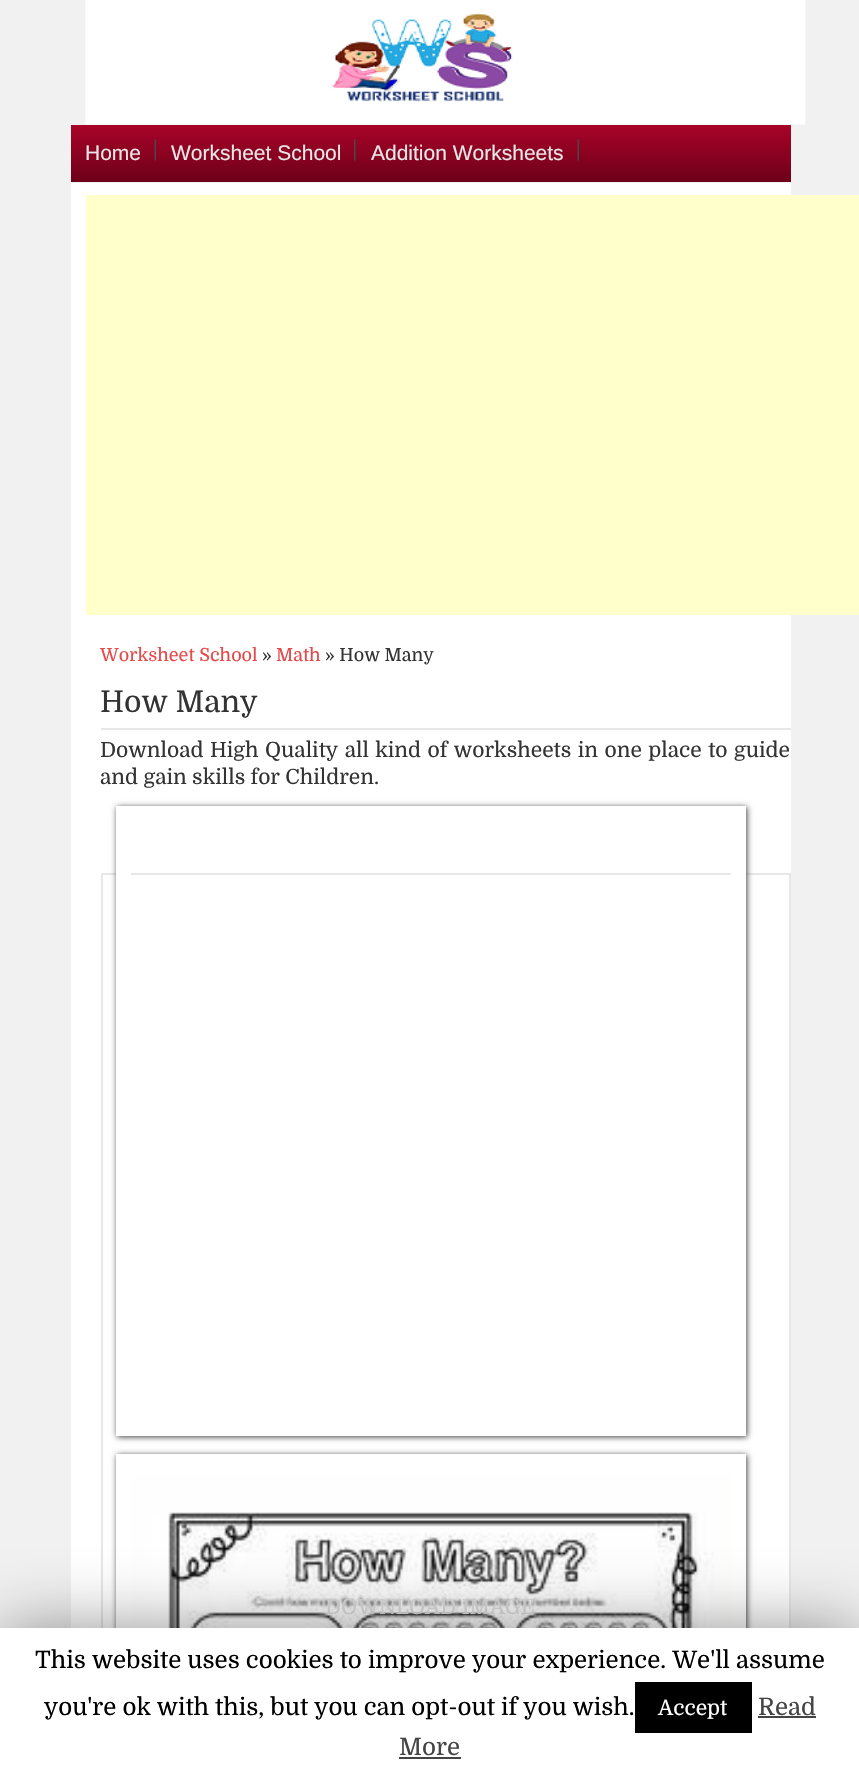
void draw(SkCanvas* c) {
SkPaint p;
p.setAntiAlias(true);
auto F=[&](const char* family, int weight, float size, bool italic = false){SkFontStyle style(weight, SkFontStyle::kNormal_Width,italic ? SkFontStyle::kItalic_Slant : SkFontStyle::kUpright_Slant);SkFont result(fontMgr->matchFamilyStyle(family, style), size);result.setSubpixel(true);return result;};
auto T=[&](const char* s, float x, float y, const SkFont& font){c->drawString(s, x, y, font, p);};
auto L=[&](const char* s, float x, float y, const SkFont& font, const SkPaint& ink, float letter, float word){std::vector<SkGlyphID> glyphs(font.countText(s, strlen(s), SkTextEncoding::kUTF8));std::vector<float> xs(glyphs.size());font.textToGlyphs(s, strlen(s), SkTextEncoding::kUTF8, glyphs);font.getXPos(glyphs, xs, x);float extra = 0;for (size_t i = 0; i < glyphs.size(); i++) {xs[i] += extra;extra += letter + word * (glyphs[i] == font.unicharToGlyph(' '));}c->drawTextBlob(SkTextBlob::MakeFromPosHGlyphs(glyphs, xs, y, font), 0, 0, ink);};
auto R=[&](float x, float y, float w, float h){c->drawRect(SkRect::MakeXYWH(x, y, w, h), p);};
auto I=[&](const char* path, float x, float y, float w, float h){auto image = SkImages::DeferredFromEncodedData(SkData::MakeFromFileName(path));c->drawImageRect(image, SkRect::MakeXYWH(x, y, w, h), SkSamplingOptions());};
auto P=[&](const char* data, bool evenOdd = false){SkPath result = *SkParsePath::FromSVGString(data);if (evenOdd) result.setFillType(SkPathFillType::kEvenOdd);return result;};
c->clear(0xfff1f1f1);
I("1.png",85,0,721,125);
{
const SkColor colors[] = {0xffa90329,0xff8f0222,0xff6d0019};
const float stops[] = {0,.44,1};
const SkPoint ends[] = {{431,124}, {431,182}};
p.setShader(SkGradientShader::MakeLinear(ends, colors, stops, 3, SkTileMode::kClamp));
p.setAlpha(255);
}
R(71,125,720,57);
I("2.png",154,139,2,22);
auto f1 = F("Liberation Sans",400,21);
p.setShader(nullptr);
p.setColor(0xffe7e7e7);
T("Home",85,160,f1);
I("3.png",354,139,2,22);
T("Worksheet School",171,160,f1);
I("2.png",577,139,2,22);
T("Addition Worksheets",371,160,f1);
p.setColor(0xffffffff);
R(71,183,720,1445);
p.setColor(0xffffffcc);
R(86,195,773,420);
auto f2 = F("Domine",400,18);
p.setColor(0xffe54949);
T("Worksheet School",100,661,f2);
p.setColor(0xff333333);
T("»",262,661,f2);
p.setColor(0xffe54949);
T("Math",276,661,f2);
p.setColor(0xff333333);
T("» How Many",325,661,f2);
auto f3 = F("Domine",400,30);
T("How Many",100,712,f3);
p.setColor(0xffe7e7e7);
R(101,728,690,2);
auto f4 = F("Domine",400,21);
p.setColor(0xff333333);
L("Download High Quality all kind of worksheets in one place to guide",100,757,f4,p,0,1.1);
T("and gain skills for Children.",100,784,f4);
p.setStroke(true);
p.setStrokeWidth(2);
p.setColor(0xffe7e7e7);
c->drawRect(SkRect::MakeXYWH(102,874,688,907),p);
c->save();
c->clipPath(P("M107 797h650v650h-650zm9 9h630v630h-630z",true),true);
p.setStroke(false);
p.setColor(0xff424242);
p.setMaskFilter(SkMaskFilter::MakeBlur(kNormal_SkBlurStyle, 3));
c->drawRect(SkRect::MakeXYWH(117,807,630,630),p);
p.setMaskFilter(nullptr);
c->restore();
p.setStroke(true);
p.setStrokeWidth(15);
p.setColor(0xffffffff);
c->drawRect(SkRect::MakeXYWH(123.5,813.5,615,615),p);
c->save();
c->clipPath(P("M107 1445h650v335h-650zm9 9h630v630h-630z",true),true);
p.setStroke(false);
p.setColor(0xff424242);
p.setMaskFilter(SkMaskFilter::MakeBlur(kNormal_SkBlurStyle, 3));
c->drawRect(SkRect::MakeXYWH(117,1455,630,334),p);
p.setMaskFilter(nullptr);
c->restore();
p.setStroke(true);
p.setColor(0xffffffff);
c->drawRect(SkRect::MakeXYWH(123.5,1461.5,615,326),p);
p.setStroke(false);
p.setColor(0xffffffee);
R(730,1475,1,153);
I("4.png",131,1475,600,153);
p.setColor(0xffdcdcdc);
T("DOWNLOAD IMAGE",325,1614,f4);
p.setColor(0x80000000);
p.setMaskFilter(SkMaskFilter::MakeBlur(kNormal_SkBlurStyle, 37.5));
c->drawRect(SkRect::MakeXYWH(0,1635,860,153),p);
p.setMaskFilter(nullptr);
p.setColor(0xffffffff);
R(0,1628,859,152);
auto f5 = F("Domine",400,24);
p.setColor(0xff000000);
T("This website uses cookies to improve your experience. We'll assume",35,1668,f5);
T("you're ok with this, but you can opt-out if you wish.",44,1715,f5);
R(635,1682,117,51);
p.setColor(0xffffffff);
T("Accept",658,1715,f4);
p.setColor(0xff444444);
T("Read",758,1715,f5);
R(758,1716,58,2);
T("More",399,1755,f5);
R(399,1757,62,2);
}
